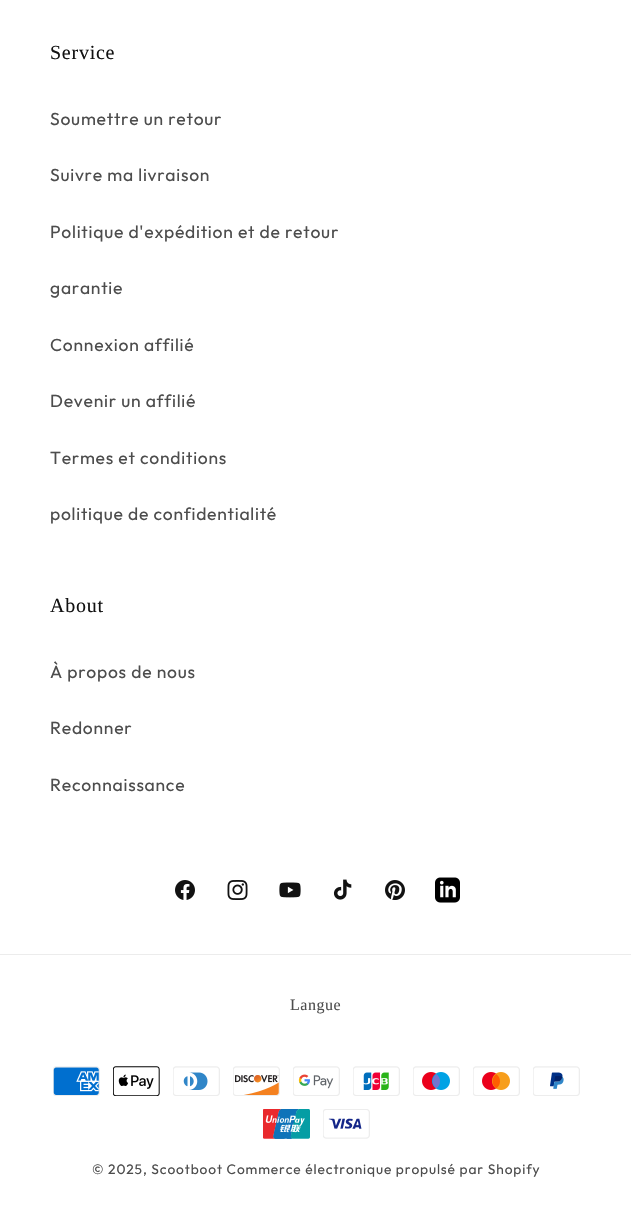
void draw(SkCanvas* c) {
SkPaint p;
p.setAntiAlias(true);
auto F=[&](const char* family, int weight, float size, bool italic = false){SkFontStyle style(weight, SkFontStyle::kNormal_Width,italic ? SkFontStyle::kItalic_Slant : SkFontStyle::kUpright_Slant);SkFont result(fontMgr->matchFamilyStyle(family, style), size);result.setSubpixel(true);return result;};
auto L=[&](const char* s, float x, float y, const SkFont& font, const SkPaint& ink, float letter, float word){std::vector<SkGlyphID> glyphs(font.countText(s, strlen(s), SkTextEncoding::kUTF8));std::vector<float> xs(glyphs.size());font.textToGlyphs(s, strlen(s), SkTextEncoding::kUTF8, glyphs);font.getXPos(glyphs, xs, x);float extra = 0;for (size_t i = 0; i < glyphs.size(); i++) {xs[i] += extra;extra += letter + word * (glyphs[i] == font.unicharToGlyph(' '));}c->drawTextBlob(SkTextBlob::MakeFromPosHGlyphs(glyphs, xs, y, font), 0, 0, ink);};
auto R=[&](float x, float y, float w, float h){c->drawRect(SkRect::MakeXYWH(x, y, w, h), p);};
auto I=[&](const char* path, float x, float y, float w, float h){auto image = SkImages::DeferredFromEncodedData(SkData::MakeFromFileName(path));c->drawImageRect(image, SkRect::MakeXYWH(x, y, w, h), SkSamplingOptions());};
c->clear(0xffffffff);
auto f1 = F("Liberation Serif",400,20);
p.setColor(0xff121212);
L("Service",50,59,f1,p,.75,0);
auto f2 = F("Outfit",400,17.5);
p.setColor(0xff4d4d4d);
L("Soumettre un retour",50,125,f2,p,.75,0);
L("Suivre ma livraison",50,181,f2,p,.75,0);
L("Politique d'expédition et de retour",50,238,f2,p,.75,0);
L("garantie",50,294,f2,p,.75,0);
L("Connexion affilié",50,351,f2,p,.75,0);
L("Devenir un affilié",50,407,f2,p,.75,0);
L("Termes et conditions",50,464,f2,p,.75,0);
L("politique de confidentialité",50,520,f2,p,.75,0);
p.setColor(0xff121212);
L("About",50,612,f1,p,.75,0);
p.setColor(0xff4d4d4d);
L("À propos de nous",50,678,f2,p,.75,0);
L("Redonner",50,734,f2,p,.75,0);
L("Reconnaissance",50,791,f2,p,.75,0);
I("1.png",175,880,20,20);
I("2.png",227,880,21,20);
I("3.png",279,882,22,16);
I("4.png",333,879,19,21);
I("5.png",385,880,20,20);
I("6.png",435,877,25,26);
p.setColor(0xffececec);
R(0,954,631,1);
auto f3 = F("Liberation Serif",400,16);
p.setColor(0xff4d4d4d);
L("Langue",290,1010,f3,p,.5,0);
I("7.png",53,1066,47,30);
I("8.png",113,1066,47,30);
I("9.png",173,1066,47,30);
I("10.png",233,1066,47,30);
I("11.png",293,1066,47,30);
I("12.png",353,1066,47,30);
I("13.png",413,1066,47,30);
I("14.png",473,1066,47,30);
I("15.png",533,1066,47,30);
I("16.png",263,1109,47,30);
I("17.png",323,1109,47,30);
auto f4 = F("Outfit",400,13.75);
L("© 2025, Scootboot Commerce électronique propulsé par Shopify",92,1174,f4,p,.88,0);
}
